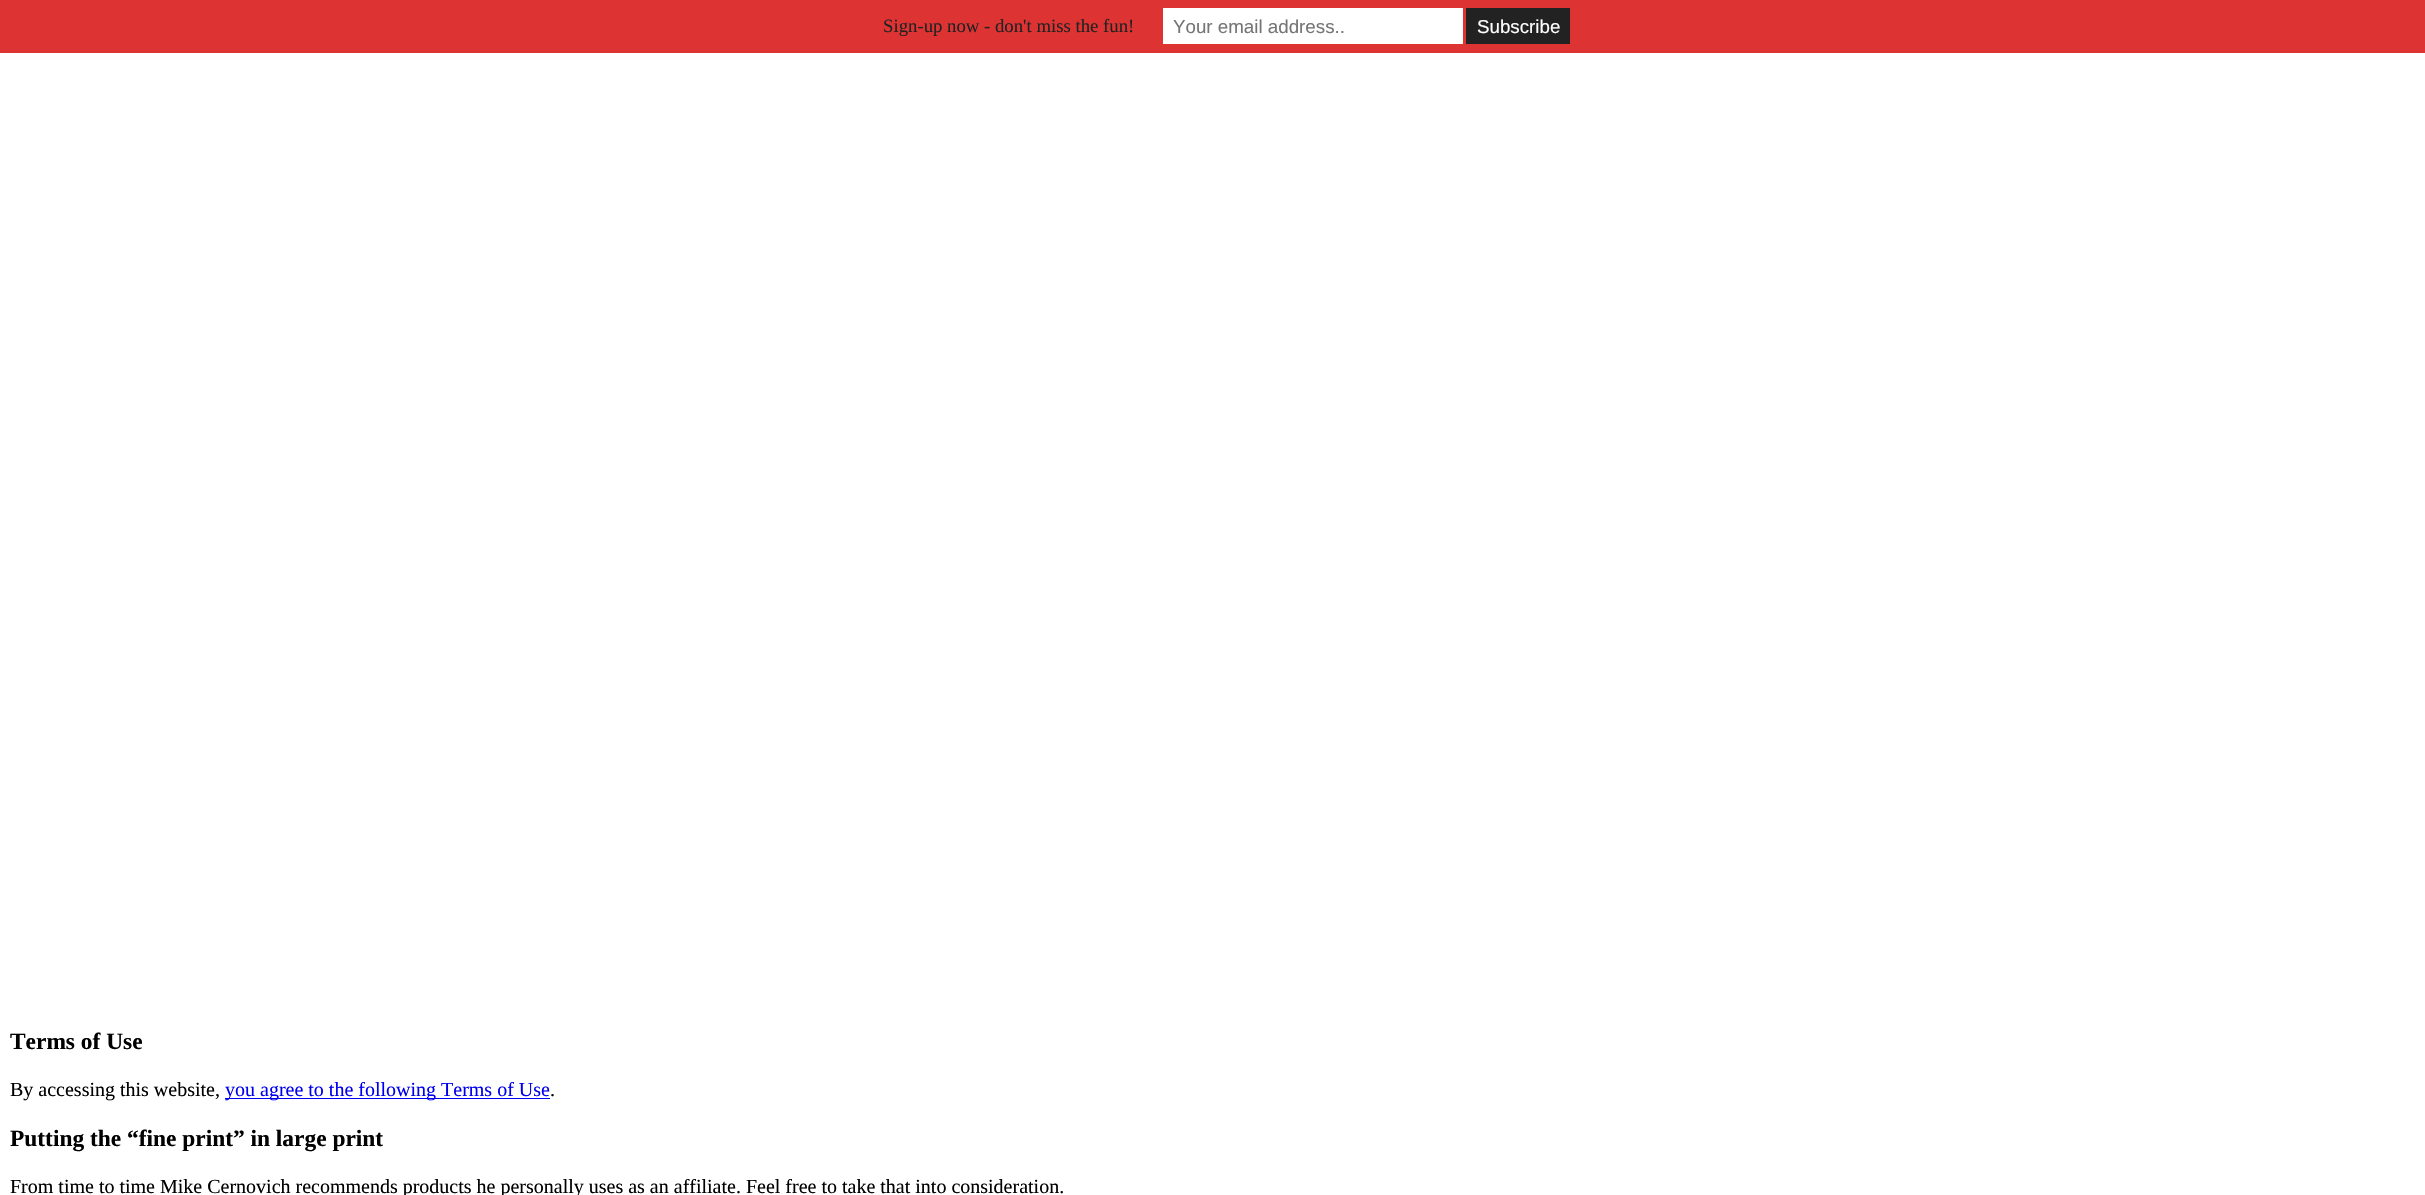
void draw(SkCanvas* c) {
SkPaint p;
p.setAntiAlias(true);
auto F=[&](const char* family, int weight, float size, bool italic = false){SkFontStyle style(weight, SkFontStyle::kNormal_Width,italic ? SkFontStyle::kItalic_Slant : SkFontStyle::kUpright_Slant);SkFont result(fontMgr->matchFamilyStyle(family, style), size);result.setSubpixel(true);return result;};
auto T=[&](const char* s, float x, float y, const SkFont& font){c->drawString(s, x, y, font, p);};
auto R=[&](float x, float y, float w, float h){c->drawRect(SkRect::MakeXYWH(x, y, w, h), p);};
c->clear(0xffffffff);
p.setColor(0xffdd3333);
R(0,0,2425,53);
auto f1 = F("Liberation Serif",400,18.75);
p.setColor(0xff222222);
T("Sign-up now - don't miss the fun!",883,32,f1);
p.setColor(0xffffffff);
R(1163,8,300,36);
auto f2 = F("Liberation Sans",400,18.75);
p.setColor(0xff757575);
T("Your email address..",1173,33,f2);
p.setColor(0xff222222);
R(1466,8,104,36);
p.setColor(0xffffffff);
T("Subscribe",1477,33,f2);
auto f3 = F("Liberation Serif",700,23.4);
p.setColor(0xff000000);
T("Terms of Use",10,1049,f3);
auto f4 = F("Liberation Serif",400,20);
T("By accessing this website,",10,1096,f4);
p.setColor(0xff0000ee);
R(225,1098,325,1);
T("you agree to the following Terms of Use",225,1096,f4);
p.setColor(0xff000000);
T(".",550,1096,f4);
T("Putting the “fine print” in large print",10,1146,f3);
T("From time to time Mike Cernovich recommends products he personally uses as an affiliate. Feel free to take that into consideration.",10,1193,f4);
}
